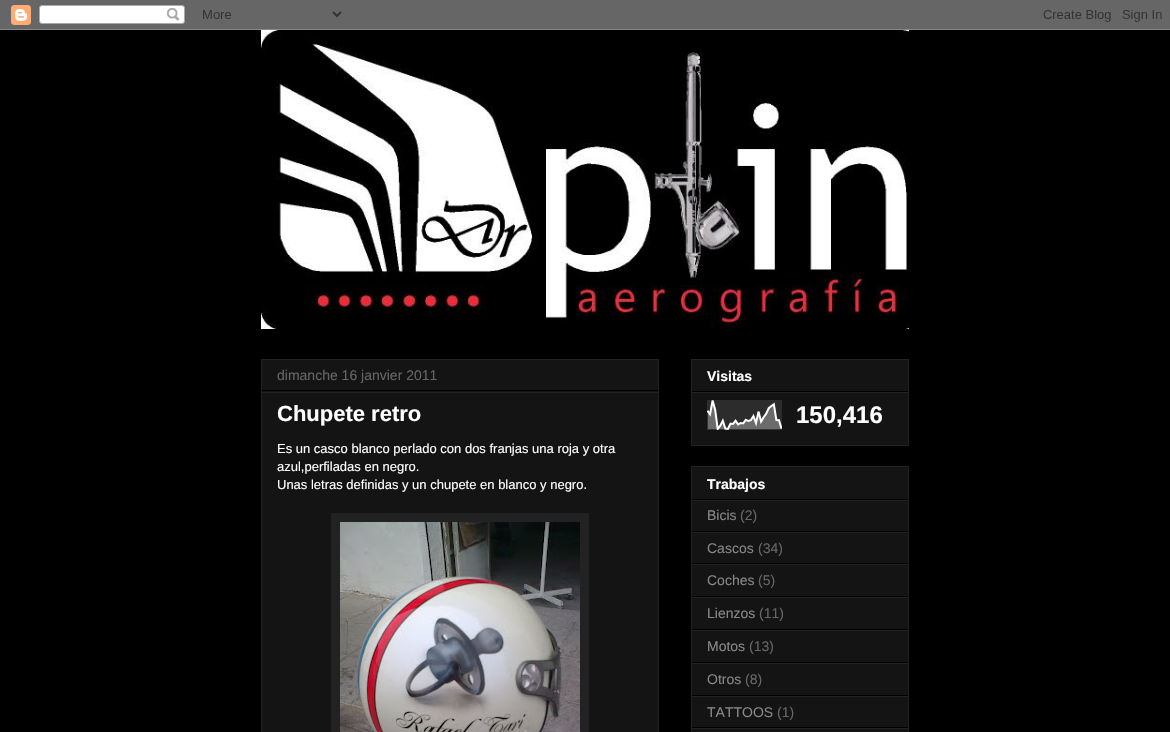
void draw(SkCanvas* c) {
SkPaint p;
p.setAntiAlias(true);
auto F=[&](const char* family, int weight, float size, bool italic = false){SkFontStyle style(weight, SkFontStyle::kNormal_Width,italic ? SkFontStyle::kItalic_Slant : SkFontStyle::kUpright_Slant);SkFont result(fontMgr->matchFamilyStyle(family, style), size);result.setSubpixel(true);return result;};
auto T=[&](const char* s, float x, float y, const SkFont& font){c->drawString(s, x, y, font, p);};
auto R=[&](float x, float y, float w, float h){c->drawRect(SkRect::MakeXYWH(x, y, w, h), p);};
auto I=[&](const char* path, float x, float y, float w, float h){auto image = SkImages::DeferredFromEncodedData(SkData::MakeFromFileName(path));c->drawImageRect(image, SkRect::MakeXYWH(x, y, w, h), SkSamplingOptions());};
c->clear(0xff000000);
I("1.png",0,0,1170,30);
I("2.png",261,30,648,299);
p.setColor(0xff141414);
c->drawRect(SkRect::MakeXYWH(261.5,359.5,397,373),p);
p.setStroke(true);
p.setStrokeWidth(1);
p.setColor(0xff222222);
c->drawRect(SkRect::MakeXYWH(261.5,359.5,397,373),p);
p.setStroke(false);
p.setColor(0xff000000);
R(262,390,396,1);
auto f1 = F("Liberation Sans",400,14);
p.setColor(0xff666666);
T("dimanche 16 janvier 2011",277,380,f1);
p.setColor(0xff222222);
R(262,392,396,1);
auto f2 = F("Liberation Sans",700,22);
p.setColor(0xffffffff);
T("Chupete retro",277,421,f2);
auto f3 = F("Liberation Sans",400,13);
T("Es un casco blanco perlado con dos franjas una roja y otra",277,453,f3);
T("azul,perfiladas en negro.",277,471,f3);
T("Unas letras definidas y un chupete en blanco y negro.",277,489,f3);
p.setColor(0xff222222);
R(331,513,258,219);
I("3.png",340,522,240,210);
p.setColor(0xff141414);
c->drawRect(SkRect::MakeXYWH(691.5,359.5,217,86),p);
p.setStroke(true);
p.setColor(0xff222222);
c->drawRect(SkRect::MakeXYWH(691.5,359.5,217,86),p);
p.setStroke(false);
p.setColor(0xff000000);
R(692,391,216,1);
auto f4 = F("Liberation Sans",700,14);
p.setColor(0xffffffff);
T("Visitas",707,381,f4);
p.setColor(0xff222222);
R(692,392,216,1);
I("4.png",707,400,75,30);
auto f5 = F("Liberation Sans",700,24);
p.setColor(0xffffffff);
T("150,416",796,423,f5);
p.setColor(0xff141414);
c->drawRect(SkRect::MakeXYWH(691.5,466.5,217,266),p);
p.setStroke(true);
p.setColor(0xff222222);
c->drawRect(SkRect::MakeXYWH(691.5,466.5,217,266),p);
p.setStroke(false);
p.setColor(0xff000000);
R(692,499,216,1);
p.setColor(0xffffffff);
T("Trabajos",707,489,f4);
p.setColor(0xff222222);
R(692,500,216,1);
p.setColor(0xff000000);
R(692,531,216,1);
p.setColor(0xff888888);
T("Bicis",707,520,f1);
p.setColor(0xff666666);
T("(2)",740,520,f1);
p.setColor(0xff222222);
R(692,532,216,1);
p.setColor(0xff000000);
R(692,563,216,1);
p.setColor(0xff888888);
T("Cascos",707,553,f1);
p.setColor(0xff666666);
T("(34)",758,553,f1);
p.setColor(0xff222222);
R(692,564,216,1);
p.setColor(0xff000000);
R(692,596,216,1);
p.setColor(0xff888888);
T("Coches",707,585,f1);
p.setColor(0xff666666);
T("(5)",758,585,f1);
p.setColor(0xff222222);
R(692,597,216,1);
p.setColor(0xff000000);
R(692,629,216,1);
p.setColor(0xff888888);
T("Lienzos",707,618,f1);
p.setColor(0xff666666);
T("(11)",759,618,f1);
p.setColor(0xff222222);
R(692,630,216,1);
p.setColor(0xff000000);
R(692,662,216,1);
p.setColor(0xff888888);
T("Motos",707,651,f1);
p.setColor(0xff666666);
T("(13)",749,651,f1);
p.setColor(0xff222222);
R(692,663,216,1);
p.setColor(0xff000000);
R(692,695,216,1);
p.setColor(0xff888888);
T("Otros",707,684,f1);
p.setColor(0xff666666);
T("(8)",745,684,f1);
p.setColor(0xff222222);
R(692,696,216,1);
p.setColor(0xff000000);
R(692,727,216,1);
p.setColor(0xff888888);
T("TATTOOS",707,717,f1);
p.setColor(0xff666666);
T("(1)",777,717,f1);
p.setColor(0xff222222);
R(692,728,216,1);
}
